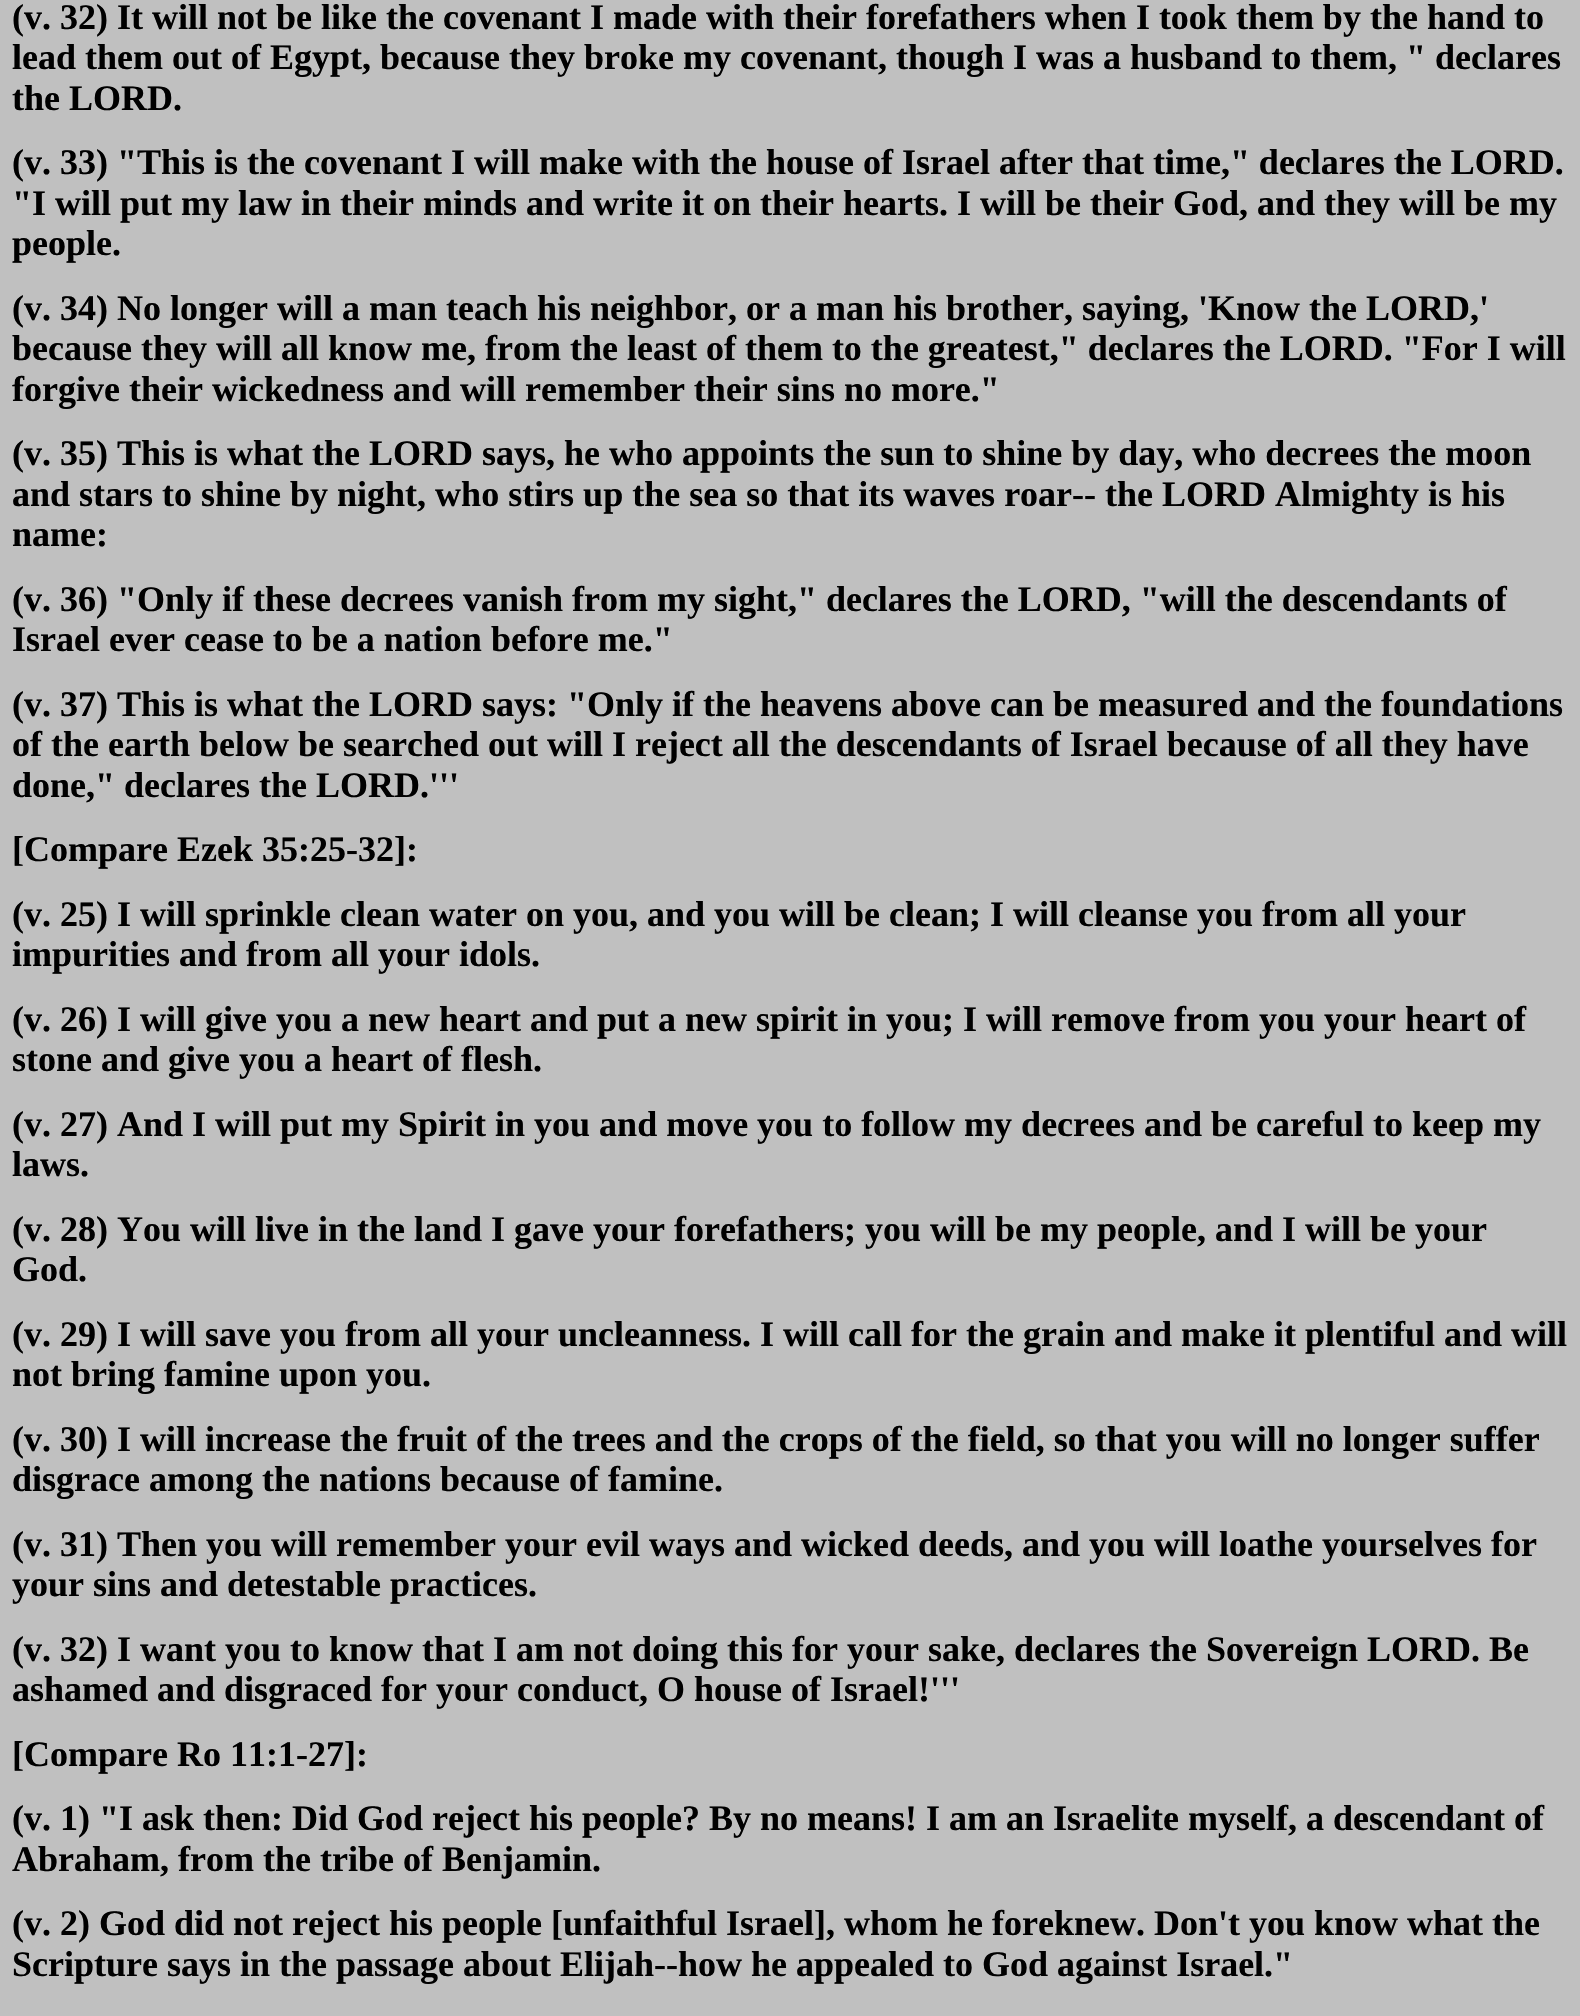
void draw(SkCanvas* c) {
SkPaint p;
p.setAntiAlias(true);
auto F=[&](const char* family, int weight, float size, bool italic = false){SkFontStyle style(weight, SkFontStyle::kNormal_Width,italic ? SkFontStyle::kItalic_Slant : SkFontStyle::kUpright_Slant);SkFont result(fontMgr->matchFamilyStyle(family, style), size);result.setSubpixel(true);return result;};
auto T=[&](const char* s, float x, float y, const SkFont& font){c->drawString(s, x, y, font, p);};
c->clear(0xffc0c0c0);
auto f1 = F("Liberation Serif",700,36);
p.setColor(0xff000000);
T("(v. 32) It will not be like the covenant I made with their forefathers when I took them by the hand to",12,29,f1);
T("lead them out of Egypt, because they broke my covenant, though I was a husband to them, \" declares",12,69,f1);
T("the LORD.",12,110,f1);
T("(v. 33) \"This is the covenant I will make with the house of Israel after that time,\" declares the LORD.",12,174,f1);
T("\"I will put my law in their minds and write it on their hearts. I will be their God, and they will be my",12,215,f1);
T("people.",12,255,f1);
T("(v. 34) No longer will a man teach his neighbor, or a man his brother, saying, 'Know the LORD,'",12,320,f1);
T("because they will all know me, from the least of them to the greatest,\" declares the LORD. \"For I will",12,360,f1);
T("forgive their wickedness and will remember their sins no more.\"",12,401,f1);
T("(v. 35) This is what the LORD says, he who appoints the sun to shine by day, who decrees the moon",12,465,f1);
T("and stars to shine by night, who stirs up the sea so that its waves roar-- the LORD Almighty is his",12,506,f1);
T("name:",12,546,f1);
T("(v. 36) \"Only if these decrees vanish from my sight,\" declares the LORD, \"will the descendants of",12,611,f1);
T("Israel ever cease to be a nation before me.\"",12,651,f1);
T("(v. 37) This is what the LORD says: \"Only if the heavens above can be measured and the foundations",12,716,f1);
T("of the earth below be searched out will I reject all the descendants of Israel because of all they have",12,756,f1);
T("done,\" declares the LORD.'''",12,797,f1);
T("[Compare Ezek 35:25-32]:",12,861,f1);
T("(v. 25) I will sprinkle clean water on you, and you will be clean; I will cleanse you from all your",12,926,f1);
T("impurities and from all your idols.",12,966,f1);
T("(v. 26) I will give you a new heart and put a new spirit in you; I will remove from you your heart of",12,1031,f1);
T("stone and give you a heart of flesh.",12,1071,f1);
T("(v. 27) And I will put my Spirit in you and move you to follow my decrees and be careful to keep my",12,1136,f1);
T("laws.",12,1176,f1);
T("(v. 28) You will live in the land I gave your forefathers; you will be my people, and I will be your",12,1241,f1);
T("God.",12,1281,f1);
T("(v. 29) I will save you from all your uncleanness. I will call for the grain and make it plentiful and will",12,1346,f1);
T("not bring famine upon you.",12,1386,f1);
T("(v. 30) I will increase the fruit of the trees and the crops of the field, so that you will no longer suffer",12,1451,f1);
T("disgrace among the nations because of famine.",12,1491,f1);
T("(v. 31) Then you will remember your evil ways and wicked deeds, and you will loathe yourselves for",12,1556,f1);
T("your sins and detestable practices.",12,1596,f1);
T("(v. 32) I want you to know that I am not doing this for your sake, declares the Sovereign LORD. Be",12,1661,f1);
T("ashamed and disgraced for your conduct, O house of Israel!'''",12,1701,f1);
T("[Compare Ro 11:1-27]:",12,1766,f1);
T("(v. 1) \"I ask then: Did God reject his people? By no means! I am an Israelite myself, a descendant of",12,1830,f1);
T("Abraham, from the tribe of Benjamin.",12,1871,f1);
T("(v. 2) God did not reject his people [unfaithful Israel], whom he foreknew. Don't you know what the",12,1935,f1);
T("Scripture says in the passage about Elijah--how he appealed to God against Israel.\"",12,1976,f1);
}
